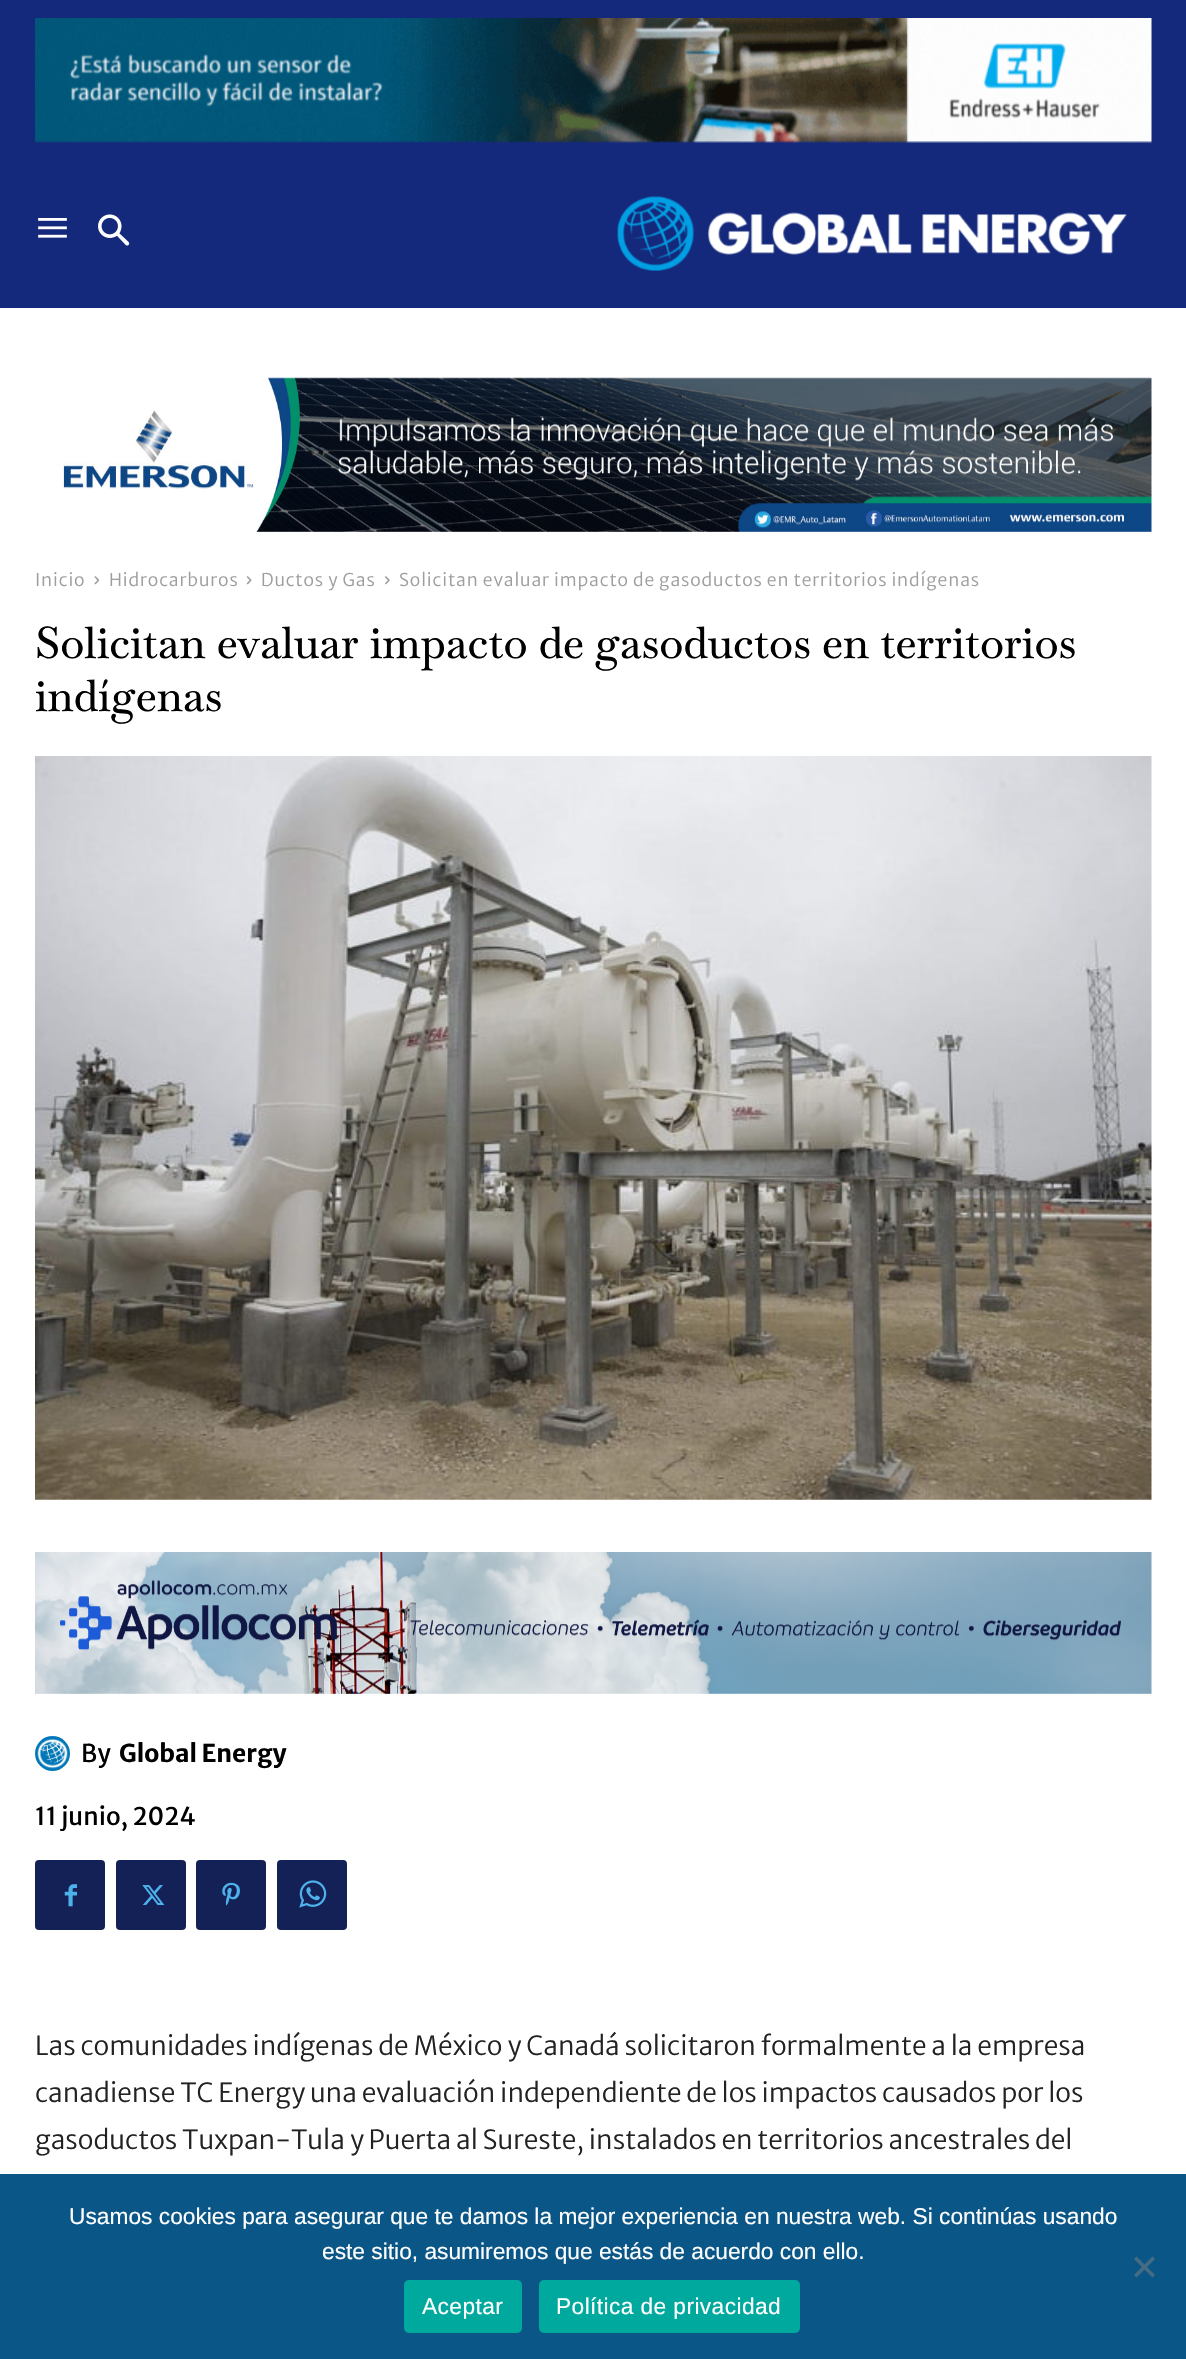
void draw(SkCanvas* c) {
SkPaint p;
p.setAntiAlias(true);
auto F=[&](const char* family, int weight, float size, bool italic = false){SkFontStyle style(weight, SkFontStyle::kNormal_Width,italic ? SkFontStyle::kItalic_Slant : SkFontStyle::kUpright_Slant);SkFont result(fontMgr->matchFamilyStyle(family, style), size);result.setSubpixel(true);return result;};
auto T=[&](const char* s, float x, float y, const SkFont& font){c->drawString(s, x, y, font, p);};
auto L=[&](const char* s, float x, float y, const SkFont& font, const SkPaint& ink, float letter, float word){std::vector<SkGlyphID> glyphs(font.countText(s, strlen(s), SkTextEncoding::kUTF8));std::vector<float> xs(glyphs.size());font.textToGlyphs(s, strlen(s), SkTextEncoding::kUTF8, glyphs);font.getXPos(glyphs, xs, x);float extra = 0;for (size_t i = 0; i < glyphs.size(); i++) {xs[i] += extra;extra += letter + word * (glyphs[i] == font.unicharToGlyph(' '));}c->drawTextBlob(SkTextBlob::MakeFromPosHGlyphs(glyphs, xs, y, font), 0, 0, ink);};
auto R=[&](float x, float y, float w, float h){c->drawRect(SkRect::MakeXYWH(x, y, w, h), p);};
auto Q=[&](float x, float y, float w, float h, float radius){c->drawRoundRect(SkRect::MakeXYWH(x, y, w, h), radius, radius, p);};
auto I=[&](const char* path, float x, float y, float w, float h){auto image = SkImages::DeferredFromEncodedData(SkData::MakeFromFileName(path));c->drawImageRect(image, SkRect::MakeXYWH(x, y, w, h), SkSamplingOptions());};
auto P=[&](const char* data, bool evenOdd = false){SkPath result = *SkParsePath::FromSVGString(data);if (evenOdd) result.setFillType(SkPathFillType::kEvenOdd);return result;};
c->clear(0xffffffff);
p.setColor(0xff15297c);
R(0,0,1186,308);
I("1.png",35,18,1117,125);
I("2.png",38,218,29,20);
I("3.png",98,214,32,32);
I("4.png",617,196,510,75);
I("5.png",62,377,1090,155);
auto f1 = F("Merriweather Sans",300,17.5);
p.setColor(0xff9e9e9e);
L("Inicio",35,586,f1,p,.88,0);
I("6.png",94,576,6,9);
L("Hidrocarburos",109,586,f1,p,.88,0);
I("7.png",246,576,6,9);
L("Ductos y Gas",261,586,f1,p,.88,0);
I("8.png",385,576,5,9);
L("Solicitan evaluar impacto de gasoductos en territorios indígenas",399,586,f1,p,.88,0);
auto f2 = F("Baskervville",500,43.75);
p.setColor(0xff000000);
T("Solicitan evaluar impacto de gasoductos en territorios",35,658,f2);
T("indígenas",35,711,f2);
I("9.png",35,756,1117,744);
I("10.png",35,1552,1117,142);
I("11.png",35,1736,35,35);
auto f3 = F("Merriweather Sans",400,24.5);
T("By",81,1762,f3);
auto f4 = F("Merriweather Sans",700,24.5);
T("Global Energy",119,1762,f4);
T("11 junio, 2024",35,1825,f3);
p.setColor(0xff142157);
Q(35,1860,70,70,4);
I("12.png",64,1884,13,23);
Q(116,1860,70,70,4);
I("13.png",142,1885,23,20);
Q(196,1860,70,70,4);
I("14.png",222,1882,18,24);
Q(277,1860,70,70,4);
I("15.png",299,1880,28,28);
auto f5 = F("Merriweather Sans",300,26.25);
p.setColor(0xff222222);
T("Las comunidades indígenas de México y Canadá solicitaron formalmente a la empresa",35,2055,f5);
T("canadiense TC Energy una evaluación independiente de los impactos causados por los",35,2102,f5);
T("gasoductos Tuxpan-Tula y Puerta al Sureste, instalados en territorios ancestrales del",35,2149,f5);
p.setColor(0xff0a5787);
R(0,2174,1186,185);
auto f6 = F("Liberation Sans",400,22.75);
p.setColor(0xffffffff);
T("Usamos cookies para asegurar que te damos la mejor experiencia en nuestra web. Si continúas usando",69,2224,f6);
T("este sitio, asumiremos que estás de acuerdo con ello.",322,2259,f6);
p.setColor(0xff456c84);
c->drawPath(P("M1152.5 2256.5l2.5 2.5l-18.5 18.5l-2.5-2.5z"),p);
c->drawPath(P("M1134 2259l2.5-2.5l18.5 18.5l-2.5 2.5z"),p);
p.setColor(0xff00a99d);
Q(404,2280,118,53,5);
p.setColor(0xffffffff);
L("Aceptar",422,2314,f6,p,.4,0);
p.setColor(0xff00a99d);
Q(539,2280,261,53,5);
p.setColor(0xffffffff);
L("Política de privacidad",556,2314,f6,p,.4,0);
}
